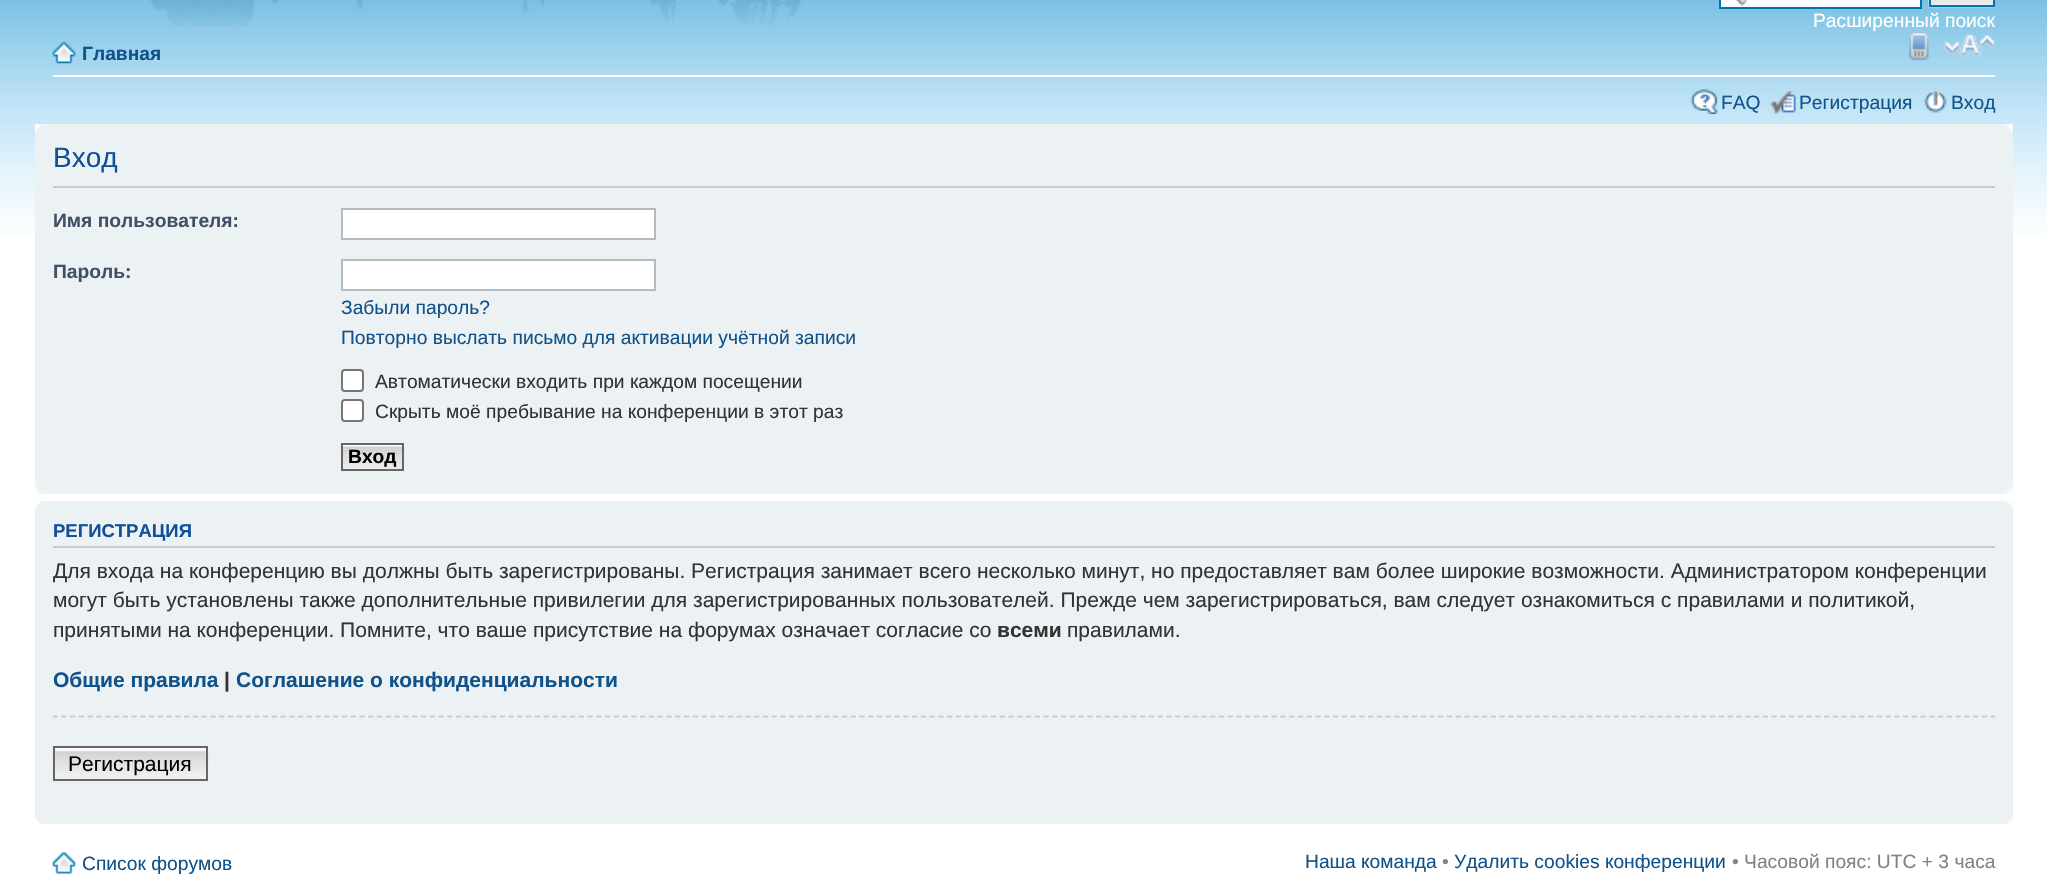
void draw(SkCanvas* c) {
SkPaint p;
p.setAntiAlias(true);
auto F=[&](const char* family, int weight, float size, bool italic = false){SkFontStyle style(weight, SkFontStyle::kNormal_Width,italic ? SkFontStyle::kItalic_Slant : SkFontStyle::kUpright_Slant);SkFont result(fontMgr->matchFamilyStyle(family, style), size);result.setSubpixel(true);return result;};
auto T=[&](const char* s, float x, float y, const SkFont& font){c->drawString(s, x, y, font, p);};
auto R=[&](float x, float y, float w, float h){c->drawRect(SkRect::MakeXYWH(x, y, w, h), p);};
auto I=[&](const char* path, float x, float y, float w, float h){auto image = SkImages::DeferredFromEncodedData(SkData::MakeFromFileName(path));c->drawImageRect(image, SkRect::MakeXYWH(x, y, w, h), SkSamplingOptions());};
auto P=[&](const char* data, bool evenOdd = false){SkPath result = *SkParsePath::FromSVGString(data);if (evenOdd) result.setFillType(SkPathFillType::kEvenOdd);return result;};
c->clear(0xffffffff);
I("1.png",0,0,2047,234);
I("2.png",150,0,652,26);
p.setColor(0xffffffff);
R(1721,0,199,7);
I("3.png",1735,0,12,6);
p.setStroke(true);
p.setStrokeWidth(2);
p.setColor(0xff0075b0);
c->drawRect(SkRect::MakeXYWH(1720,-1,201,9),p);
I("4.png",1928,0,67,8);
c->drawRect(SkRect::MakeXYWH(1930,-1,64,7),p);
auto f1 = F("Liberation Sans",400,19.25);
p.setStroke(false);
p.setColor(0xffffffff);
T("Расширенный поиск",1813,27,f1);
R(53,75,1942,2);
I("5.png",52,42,24,22);
auto f2 = F("Liberation Sans",700,19.25);
p.setColor(0xff105289);
T("Главная",82,60,f2);
I("6.png",1909,31,20,30);
I("7.png",1944,34,51,23);
I("8.png",1690,89,29,25);
T("FAQ",1721,109,f1);
I("9.png",1770,90,26,24);
T("Регистрация",1799,109,f1);
I("10.png",1924,90,23,23);
T("Вход",1951,109,f1);
p.setColor(0xffecf1f3);
R(35,124,1978,370);
I("11.png",35,124,8,9);
I("12.png",2005,124,8,8);
p.setColor(0xffcccccc);
R(53,186,1942,2);
auto f3 = F("Liberation Sans",400,28);
p.setColor(0xff115098);
T("Вход",53,167,f3);
p.setColor(0xff425067);
T("Имя пользователя:",53,227,f2);
p.setColor(0xffffffff);
c->drawRect(SkRect::MakeXYWH(342,209,313,30),p);
p.setStroke(true);
p.setColor(0xffb4bac0);
c->drawRect(SkRect::MakeXYWH(342,209,313,30),p);
p.setStroke(false);
p.setColor(0xff425067);
T("Пароль:",53,278,f2);
p.setColor(0xffffffff);
c->drawRect(SkRect::MakeXYWH(342,260,313,30),p);
p.setStroke(true);
p.setColor(0xffb4bac0);
c->drawRect(SkRect::MakeXYWH(342,260,313,30),p);
p.setStroke(false);
p.setColor(0xff105289);
T("Забыли пароль?",341,314,f1);
T("Повторно выслать письмо для активации учётной записи",341,344,f1);
p.setColor(0xffffffff);
c->drawRoundRect(SkRect::MakeXYWH(342,370,21,21),3,3,p);
p.setStroke(true);
p.setColor(0xff767676);
c->drawRoundRect(SkRect::MakeXYWH(342,370,21,21),3,3,p);
p.setStroke(false);
p.setColor(0xff333333);
T("Автоматически входить при каждом посещении",375,388,f1);
p.setColor(0xffffffff);
c->drawRoundRect(SkRect::MakeXYWH(342,400,21,21),3,3,p);
p.setStroke(true);
p.setColor(0xff767676);
c->drawRoundRect(SkRect::MakeXYWH(342,400,21,21),3,3,p);
p.setStroke(false);
p.setColor(0xff333333);
T("Скрыть моё пребывание на конференции в этот раз",375,418,f1);
I("13.png",343,445,62,26);
p.setStroke(true);
p.setColor(0xff666666);
c->drawRect(SkRect::MakeXYWH(342,444,61,26),p);
p.setStroke(false);
p.setColor(0xff000000);
T("Вход",348,463,f2);
I("14.png",35,485,8,9);
I("15.png",2005,486,8,8);
p.setColor(0xffecf1f3);
R(35,501,1978,323);
I("16.png",35,501,8,8);
I("17.png",2004,501,9,8);
p.setColor(0xffcccccc);
R(53,546,1942,2);
auto f4 = F("Liberation Sans",700,18.5);
p.setColor(0xff115098);
T("РЕГИСТРАЦИЯ",53,537,f4);
c->save();
c->clipRect(SkRect::MakeXYWH(53,509,1942,307));
auto f5 = F("Liberation Sans",400,21);
p.setColor(0xff333333);
T("Для входа на конференцию вы должны быть зарегистрированы. Регистрация занимает всего несколько минут, но предоставляет вам более широкие возможности. Администратором конференции",53,578,f5);
c->restore();
T("могут быть установлены также дополнительные привилегии для зарегистрированных пользователей. Прежде чем зарегистрироваться, вам следует ознакомиться с правилами и политикой,",53,607,f5);
T("принятыми на конференции. Помните, что ваше присутствие на форумах означает согласие со",53,637,f5);
auto f6 = F("Liberation Sans",700,21);
T("всеми",997,637,f6);
T("правилами.",1067,637,f5);
p.setColor(0xff105289);
T("Общие правила",53,687,f6);
p.setColor(0xff333333);
T("|",224,687,f6);
p.setColor(0xff105289);
T("Соглашение о конфиденциальности",236,687,f6);
c->save();
c->clipRect(SkRect::MakeXYWH(53,509,1942,307));
p.setStroke(true);
p.setStrokeWidth(1.8);
p.setColor(0xffcccccc);
p.setPathEffect(SkDashPathEffect::Make({{5.25f,3.52f}}, 0));
c->drawPath(P("M52.5 716.5h1942.5"),p);
p.setPathEffect(nullptr);
c->restore();
I("18.png",52,750,157,31);
p.setStroke(false);
p.setColor(0xfffafafa);
R(55,748,151,2);
p.setStroke(true);
p.setStrokeWidth(2);
p.setColor(0xff666666);
c->drawRect(SkRect::MakeXYWH(54,747,153,33),p);
p.setStroke(false);
p.setColor(0xff000000);
T("Регистрация",68,771,f5);
I("19.png",35,816,8,8);
I("20.png",2005,817,8,7);
I("21.png",52,852,24,22);
p.setColor(0xff105289);
T("Список форумов",82,870,f1);
T("Наша команда",1305,868,f1);
p.setColor(0xff828282);
T("•",1442,868,f1);
p.setColor(0xff105289);
T("Удалить cookies конференции",1454,868,f1);
p.setColor(0xff828282);
T("• Часовой пояс: UTC + 3 часа",1732,868,f1);
}
